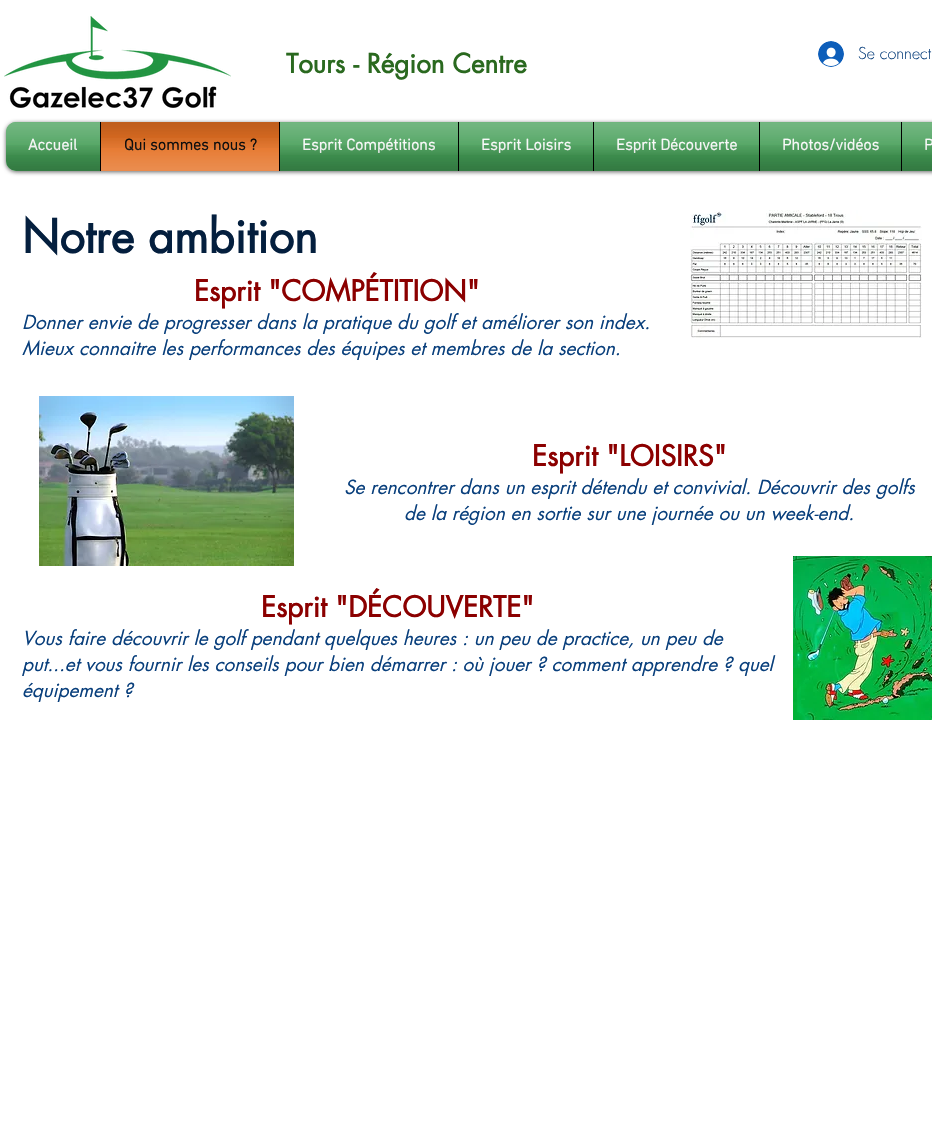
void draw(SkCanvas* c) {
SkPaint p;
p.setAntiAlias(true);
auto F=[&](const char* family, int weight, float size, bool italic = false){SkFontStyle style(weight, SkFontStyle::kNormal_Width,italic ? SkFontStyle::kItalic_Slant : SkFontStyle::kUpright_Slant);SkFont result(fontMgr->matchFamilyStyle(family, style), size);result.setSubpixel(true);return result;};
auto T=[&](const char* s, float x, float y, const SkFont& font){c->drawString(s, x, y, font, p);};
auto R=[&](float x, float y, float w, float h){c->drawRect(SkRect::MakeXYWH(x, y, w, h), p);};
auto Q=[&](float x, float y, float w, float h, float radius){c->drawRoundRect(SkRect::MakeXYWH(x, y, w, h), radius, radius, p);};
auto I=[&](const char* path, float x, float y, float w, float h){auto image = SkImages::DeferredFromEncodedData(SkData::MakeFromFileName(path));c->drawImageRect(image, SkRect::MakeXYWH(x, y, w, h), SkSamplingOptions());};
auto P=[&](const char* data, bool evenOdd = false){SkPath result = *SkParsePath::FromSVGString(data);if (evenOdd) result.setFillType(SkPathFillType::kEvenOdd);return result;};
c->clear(0xffffffff);
I("1.png",4,16,227,92);
auto f1 = F("futura",700,26);
p.setColor(0xff2a691f);
T("Tours - Région Centre",286,73,f1);
I("2.png",818,41,26,26);
auto f2 = F("futura",300,16);
p.setColor(0xff093f7c);
T("Se connect",858,59,f2);
c->save();
c->clipPath(P("M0 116h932v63h-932zm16 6h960c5.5 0 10 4.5 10 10v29c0 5.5-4.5 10-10 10h-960c-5.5 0-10-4.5-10-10v-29c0-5.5 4.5-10 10-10z",true),true);
p.setColor(0x99000000);
p.setMaskFilter(SkMaskFilter::MakeBlur(kNormal_SkBlurStyle, 2));
c->drawRoundRect(SkRect::MakeXYWH(6,123,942,49),10,10,p);
p.setMaskFilter(nullptr);
c->restore();
p.setColor(0x99228c37);
Q(6,122,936,49,10);
I("3.png",6,122,926,31);
I("4.png",6,145,926,26);
c->drawPath(P("M16 122h84v49h-84c-5.5 0-10-4.5-10-10v-29c0-5.5 4.5-10 10-10z"),p);
auto f3 = F("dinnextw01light",700,16);
p.setColor(0xfffafafa);
T("Accueil",28,150,f3);
I("5.png",6,122,94,33);
I("6.png",6,145,94,26);
p.setColor(0xffe57022);
R(101,122,178,49);
p.setColor(0xff000000);
R(100,122,1,49);
T("Qui sommes nous ?",124,150,f3);
I("7.png",101,122,178,26);
I("8.png",101,138,178,33);
p.setColor(0x99228c37);
R(280,122,178,49);
p.setColor(0xff000000);
R(279,122,1,49);
p.setColor(0xfffafafa);
T("Esprit Compétitions",302,150,f3);
I("9.png",280,122,178,33);
I("10.png",280,145,178,26);
p.setColor(0x99228c37);
R(459,122,134,49);
p.setColor(0xff000000);
R(458,122,1,49);
p.setColor(0xfffafafa);
T("Esprit Loisirs",481,150,f3);
I("11.png",459,122,134,33);
I("12.png",459,145,134,26);
p.setColor(0x99228c37);
R(594,122,165,49);
p.setColor(0xff000000);
R(593,122,1,49);
p.setColor(0xfffafafa);
T("Esprit Découverte",616,150,f3);
I("13.png",594,122,165,33);
I("14.png",594,145,165,26);
p.setColor(0x99228c37);
R(760,122,141,49);
p.setColor(0xff000000);
R(759,122,1,49);
p.setColor(0xfffafafa);
T("Photos/vidéos",782,150,f3);
I("15.png",760,122,141,33);
I("16.png",760,145,141,26);
p.setColor(0x99228c37);
R(902,122,30,49);
p.setColor(0xff000000);
R(901,122,1,49);
p.setColor(0xfffafafa);
T("P",924,150,f3);
I("17.png",902,122,30,33);
I("18.png",902,145,30,26);
auto f4 = F("futura",700,45);
p.setColor(0xff041f3e);
T("Notre ambition",22,253,f4);
I("19.png",690,210,232,128);
auto f5 = F("futura",700,28);
p.setColor(0xff8b0000);
T("Esprit \"COMPÉTITION\"",194,301,f5);
auto f6 = F("futura",400,19,true);
p.setColor(0xff093f7c);
T("Donner envie de progresser dans la pratique du golf et améliorer son index.",22,329,f6);
T("Mieux connaitre les performances des équipes et membres de la section.",22,355,f6);
I("20.png",39,396,255,170);
p.setColor(0xff8b0000);
T("Esprit \"LOISIRS\"",532,466,f5);
p.setColor(0xff093f7c);
T("Se rencontrer dans un esprit détendu et convivial. Découvrir des golfs",344,494,f6);
T("de la région en sortie sur une journée ou un week-end.",404,520,f6);
p.setColor(0xff8b0000);
T("Esprit \"DÉCOUVERTE\"",261,617,f5);
p.setColor(0xff093f7c);
T("Vous faire découvrir le golf pendant quelques heures : un peu de practice, un peu de",22,645,f6);
T("put...et vous fournir les conseils pour bien démarrer : où jouer ? comment apprendre ? quel",22,671,f6);
T("équipement ?",22,697,f6);
I("21.png",793,556,139,164);
}
